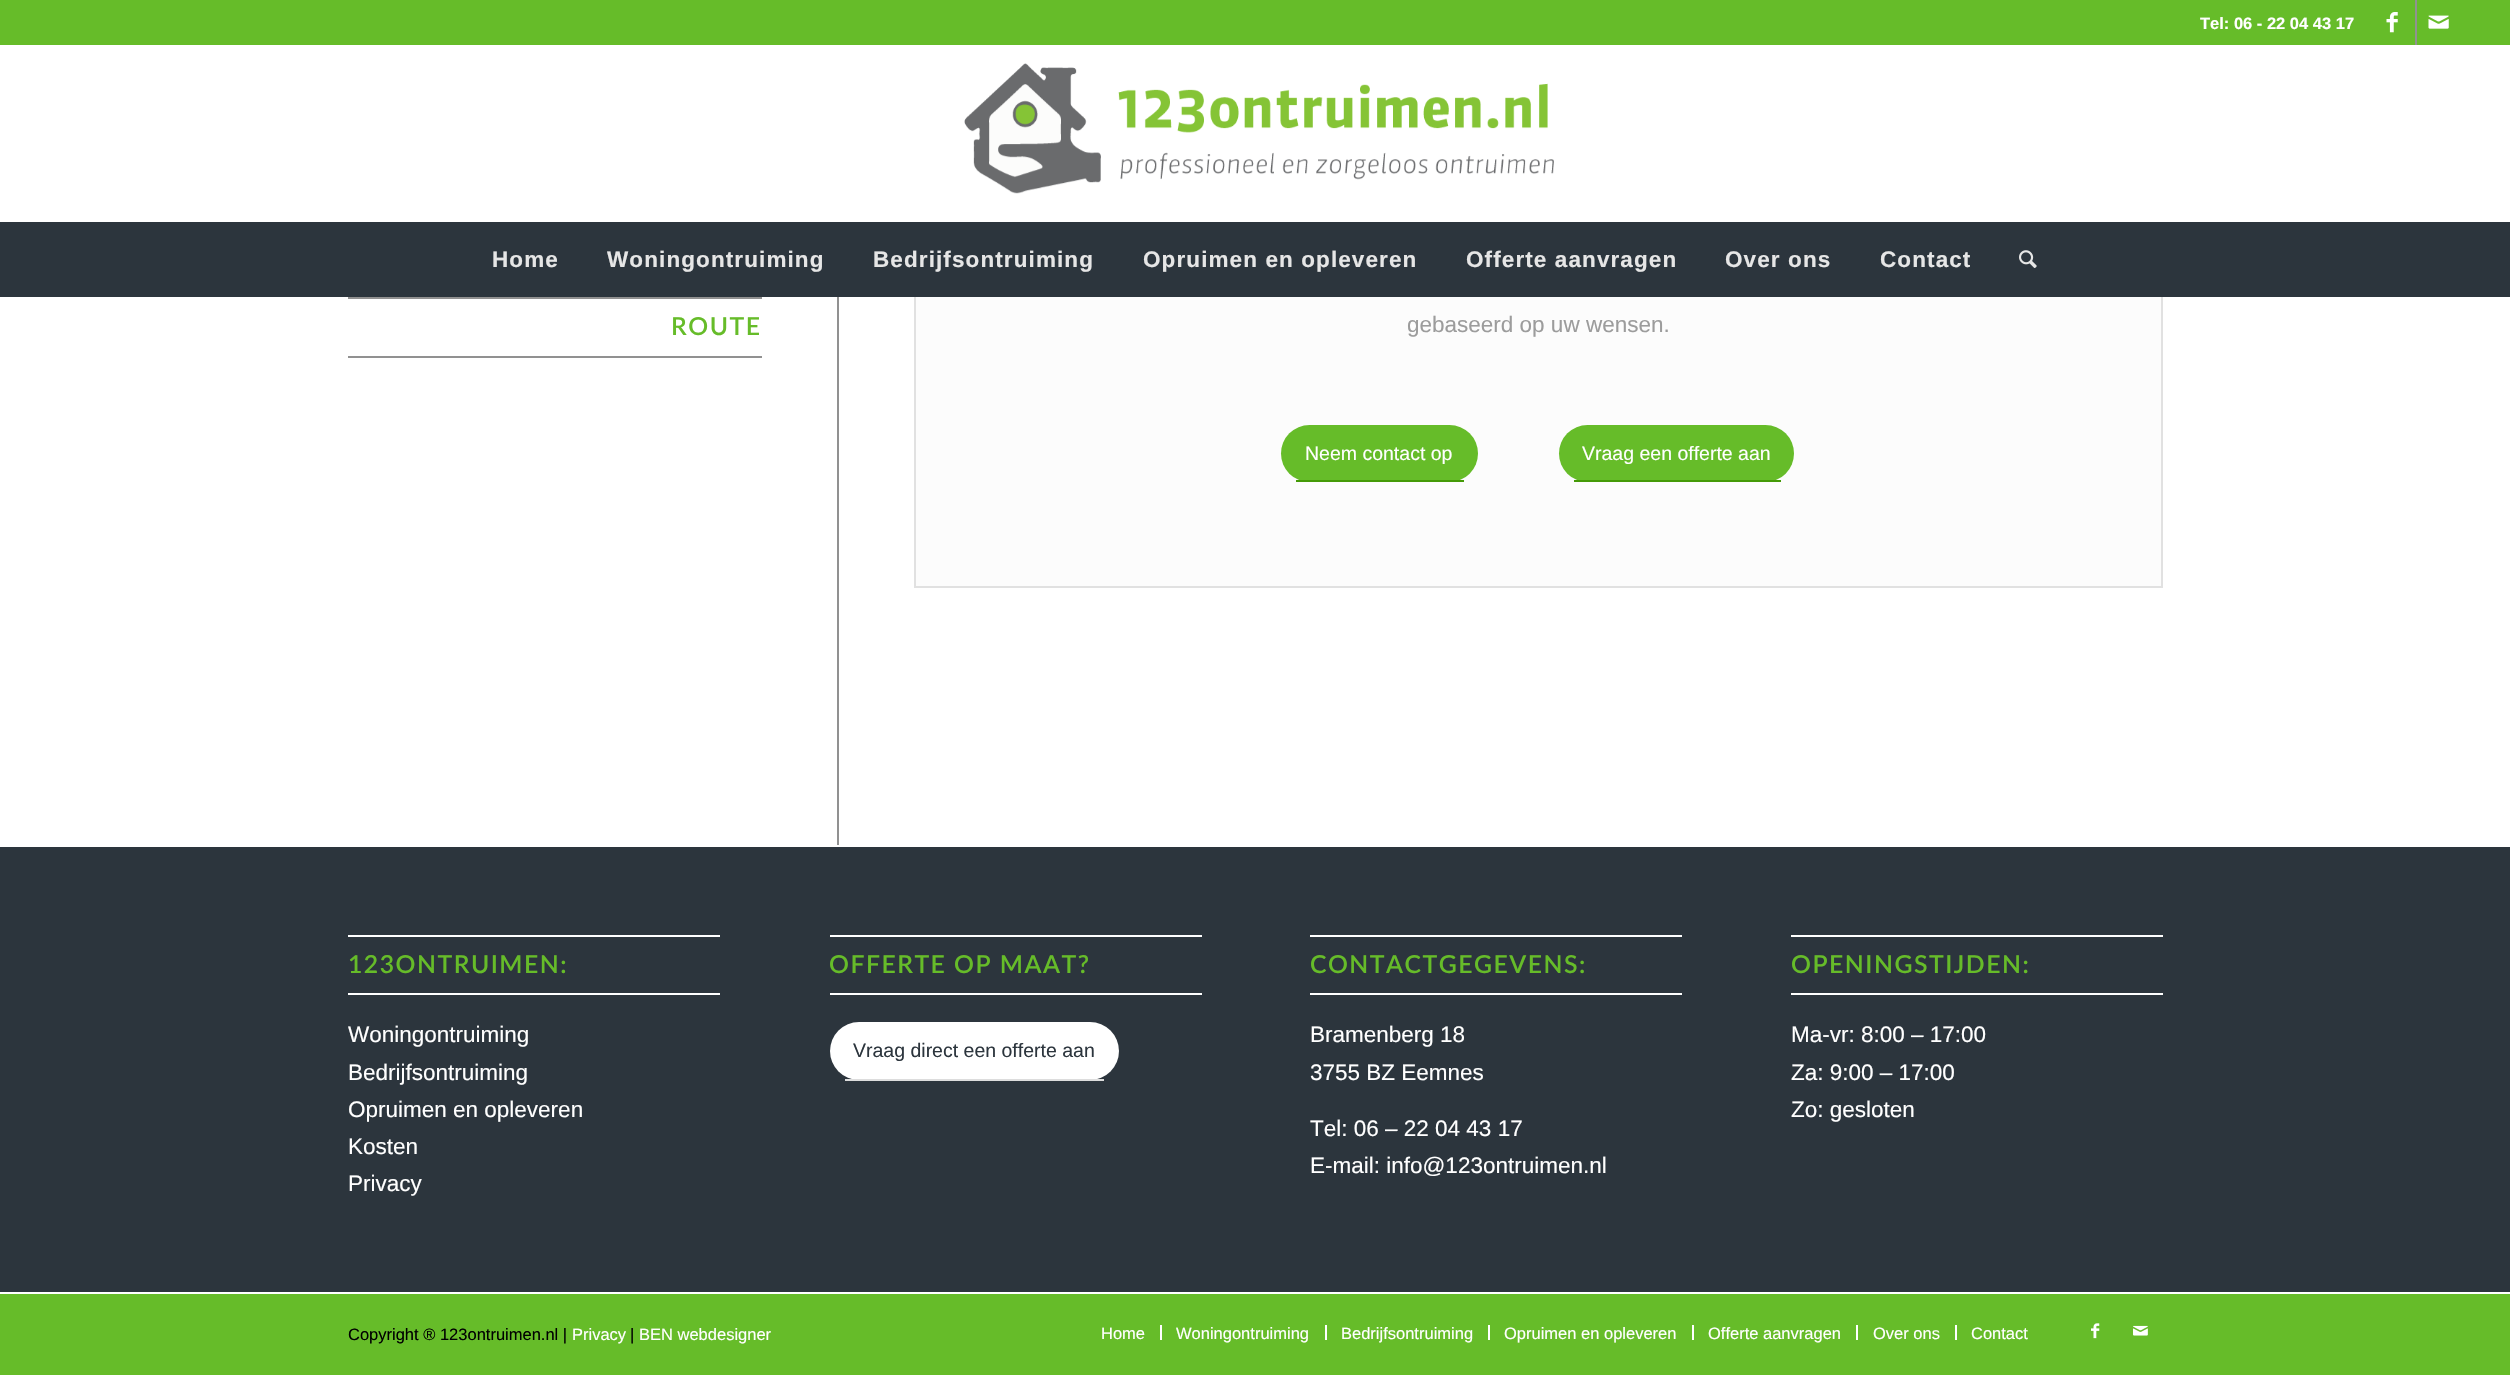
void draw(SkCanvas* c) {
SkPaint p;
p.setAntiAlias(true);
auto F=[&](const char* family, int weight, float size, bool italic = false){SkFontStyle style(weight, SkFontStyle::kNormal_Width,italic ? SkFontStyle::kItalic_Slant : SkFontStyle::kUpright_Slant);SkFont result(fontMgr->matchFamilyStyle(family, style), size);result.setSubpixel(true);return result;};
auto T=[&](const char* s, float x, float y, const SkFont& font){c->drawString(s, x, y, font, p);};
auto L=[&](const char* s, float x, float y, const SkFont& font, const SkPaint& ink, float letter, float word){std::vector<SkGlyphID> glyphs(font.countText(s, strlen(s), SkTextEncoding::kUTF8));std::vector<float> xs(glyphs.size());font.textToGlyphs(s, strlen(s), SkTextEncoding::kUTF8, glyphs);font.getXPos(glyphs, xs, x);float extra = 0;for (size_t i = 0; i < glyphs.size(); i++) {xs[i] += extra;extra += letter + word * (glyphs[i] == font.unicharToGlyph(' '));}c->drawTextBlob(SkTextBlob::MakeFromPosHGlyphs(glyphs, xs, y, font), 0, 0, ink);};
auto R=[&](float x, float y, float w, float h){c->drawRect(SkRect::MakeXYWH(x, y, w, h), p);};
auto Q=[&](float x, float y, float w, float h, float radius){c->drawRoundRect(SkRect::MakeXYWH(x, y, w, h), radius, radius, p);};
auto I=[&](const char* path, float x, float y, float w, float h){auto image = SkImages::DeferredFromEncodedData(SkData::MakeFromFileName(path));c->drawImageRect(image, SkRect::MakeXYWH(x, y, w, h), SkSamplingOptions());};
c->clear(0xffffffff);
p.setColor(0xff66bc29);
R(0,0,2510,45);
auto f1 = F("Liberation Sans",700,16.5);
p.setColor(0xffffffff);
T("Tel: 06 - 22 04 43 17",2200,29,f1);
p.setColor(0xff919191);
R(2415,0,2,45);
I("1.png",2386,12,12,21);
I("2.png",2428,15,21,14);
p.setColor(0xfffcfcfc);
R(916,297,1245,289);
p.setStroke(true);
p.setStrokeWidth(2);
p.setColor(0xffe1e1e1);
c->drawRect(SkRect::MakeXYWH(915,220,1247,367),p);
p.setStroke(false);
p.setColor(0xffffffff);
R(914,219,1249,3);
I("3.png",964,63,590,131);
p.setColor(0xff2c353d);
R(0,222,2510,75);
auto f2 = F("Liberation Sans",700,22.5);
p.setColor(0xffe6e6e6);
L("Home",492,267,f2,p,1.1,0);
L("Woningontruiming",607,267,f2,p,1.1,0);
L("Bedrijfsontruiming",873,267,f2,p,1.1,0);
L("Opruimen en opleveren",1143,267,f2,p,1.1,0);
L("Offerte aanvragen",1466,267,f2,p,1.1,0);
L("Over ons",1725,267,f2,p,1.1,0);
L("Contact",1880,267,f2,p,1.1,0);
I("4.png",2019,250,18,18);
p.setColor(0xff919191);
R(837,297,2,548);
R(348,297,414,2);
R(348,356,414,2);
auto f3 = F("Lato",600,24.75);
p.setColor(0xff66bc29);
L("ROUTE",671,335,f3,p,1.5,0);
auto f4 = F("Liberation Sans",400,22.5);
p.setColor(0xff9c9c9c);
T("gebaseerd op uw wensen.",1407,332,f4);
p.setColor(0xff66bc29);
Q(1281,425,197,57,28.5);
p.setColor(0xff449a07);
R(1296,480,168,2);
auto f5 = F("Liberation Sans",400,19.5);
p.setColor(0xffffffff);
T("Neem contact op",1305,460,f5);
p.setColor(0xff66bc29);
Q(1559,425,235,57,28.5);
p.setColor(0xff449a07);
R(1574,480,207,2);
p.setColor(0xffffffff);
T("Vraag een offerte aan",1582,460,f5);
p.setColor(0xff2c353d);
R(0,847,2510,445);
p.setColor(0xffffffff);
R(348,935,372,2);
R(348,993,372,2);
p.setColor(0xff66bc29);
L("123ONTRUIMEN:",348,973,f3,p,1.5,0);
p.setColor(0xffffffff);
T("Woningontruiming",348,1042,f4);
T("Bedrijfsontruiming",348,1080,f4);
T("Opruimen en opleveren",348,1117,f4);
T("Kosten",348,1154,f4);
T("Privacy",348,1191,f4);
R(830,935,372,2);
R(830,993,372,2);
p.setColor(0xff66bc29);
L("OFFERTE OP MAAT?",829,973,f3,p,1.5,0);
p.setColor(0xffffffff);
Q(830,1022,289,58,29);
p.setColor(0xffdddddd);
R(845,1079,259,2);
p.setColor(0xff2c353d);
T("Vraag direct een offerte aan",853,1057,f5);
p.setColor(0xffffffff);
R(1310,935,372,2);
R(1310,993,372,2);
p.setColor(0xff66bc29);
L("CONTACTGEGEVENS:",1310,973,f3,p,1.5,0);
p.setColor(0xffffffff);
T("Bramenberg 18",1310,1042,f4);
T("3755 BZ Eemnes",1310,1080,f4);
T("Tel: 06 – 22 04 43 17",1310,1136,f4);
T("E-mail: info@123ontruimen.nl",1310,1173,f4);
R(1791,935,372,2);
R(1791,993,372,2);
p.setColor(0xff66bc29);
L("OPENINGSTIJDEN:",1791,973,f3,p,1.5,0);
p.setColor(0xffffffff);
T("Ma-vr: 8:00 – 17:00",1791,1042,f4);
T("Za: 9:00 – 17:00",1791,1080,f4);
T("Zo: gesloten",1791,1117,f4);
p.setColor(0xff66bc29);
R(0,1294,2510,81);
auto f6 = F("Liberation Sans",400,16.5);
p.setColor(0xff000000);
T("Copyright ® 123ontruimen.nl |",348,1340,f6);
p.setColor(0xffffffff);
T("Privacy",572,1340,f6);
p.setColor(0xff000000);
T("|",630,1340,f6);
p.setColor(0xffffffff);
T("BEN webdesigner",639,1340,f6);
T("Home",1101,1339,f6);
R(1160,1325,2,15);
T("Woningontruiming",1176,1339,f6);
R(1325,1325,2,15);
T("Bedrijfsontruiming",1341,1339,f6);
R(1488,1325,2,15);
T("Opruimen en opleveren",1504,1339,f6);
R(1692,1325,2,15);
T("Offerte aanvragen",1708,1339,f6);
R(1856,1325,2,15);
T("Over ons",1873,1339,f6);
R(1955,1325,2,15);
T("Contact",1971,1339,f6);
I("5.png",2091,1323,9,16);
I("6.png",2133,1325,15,11);
}
